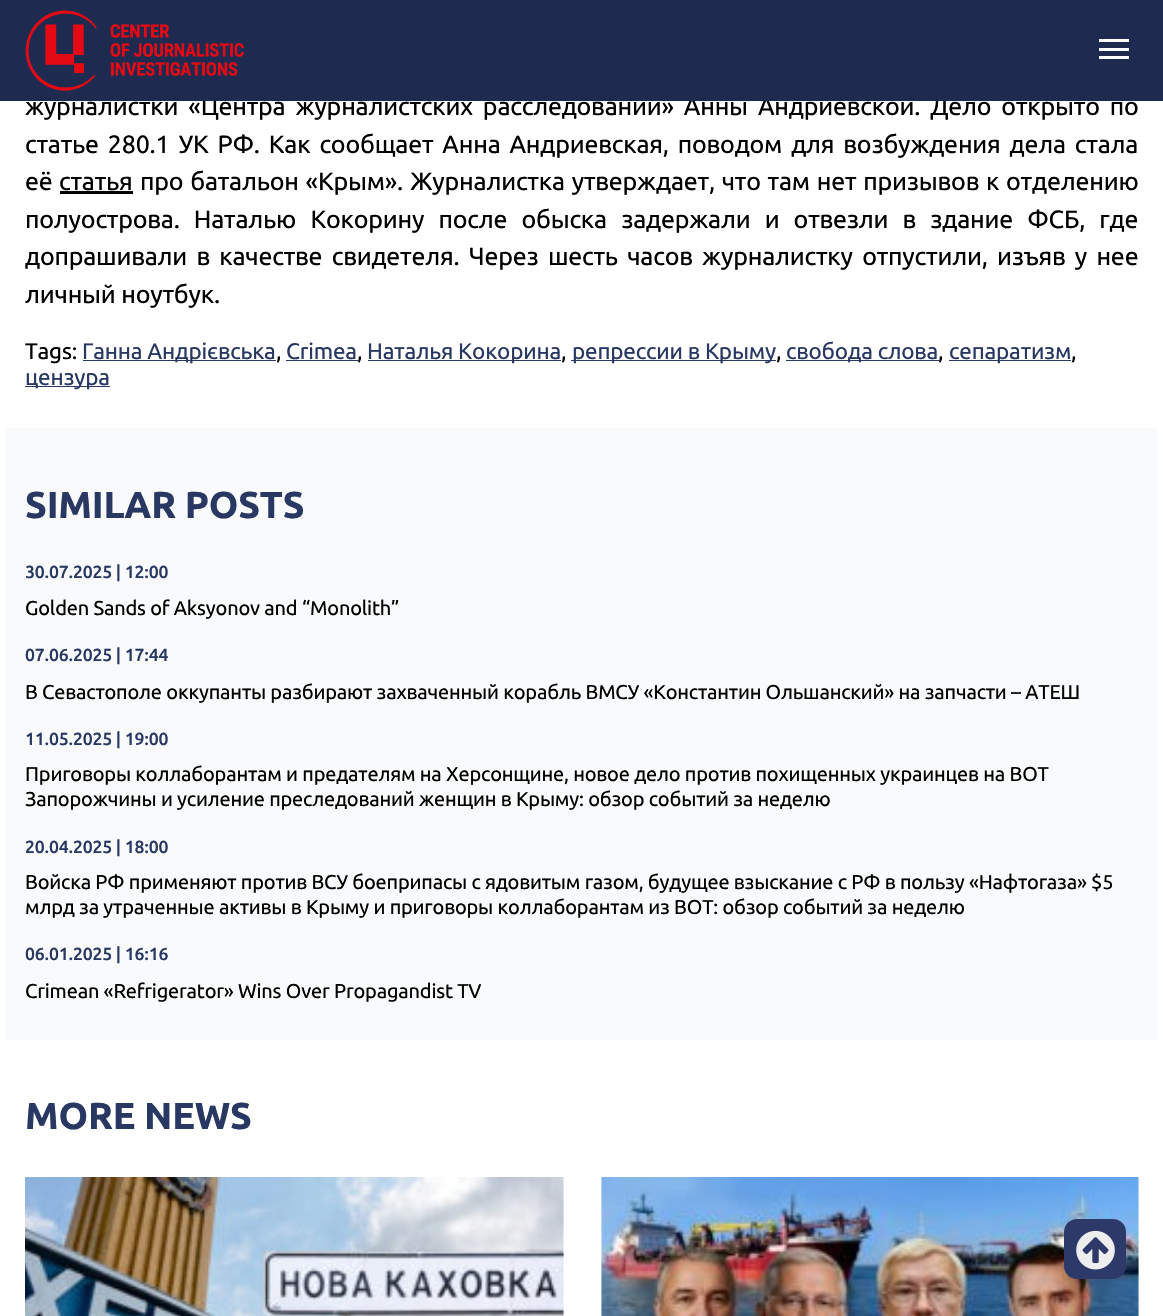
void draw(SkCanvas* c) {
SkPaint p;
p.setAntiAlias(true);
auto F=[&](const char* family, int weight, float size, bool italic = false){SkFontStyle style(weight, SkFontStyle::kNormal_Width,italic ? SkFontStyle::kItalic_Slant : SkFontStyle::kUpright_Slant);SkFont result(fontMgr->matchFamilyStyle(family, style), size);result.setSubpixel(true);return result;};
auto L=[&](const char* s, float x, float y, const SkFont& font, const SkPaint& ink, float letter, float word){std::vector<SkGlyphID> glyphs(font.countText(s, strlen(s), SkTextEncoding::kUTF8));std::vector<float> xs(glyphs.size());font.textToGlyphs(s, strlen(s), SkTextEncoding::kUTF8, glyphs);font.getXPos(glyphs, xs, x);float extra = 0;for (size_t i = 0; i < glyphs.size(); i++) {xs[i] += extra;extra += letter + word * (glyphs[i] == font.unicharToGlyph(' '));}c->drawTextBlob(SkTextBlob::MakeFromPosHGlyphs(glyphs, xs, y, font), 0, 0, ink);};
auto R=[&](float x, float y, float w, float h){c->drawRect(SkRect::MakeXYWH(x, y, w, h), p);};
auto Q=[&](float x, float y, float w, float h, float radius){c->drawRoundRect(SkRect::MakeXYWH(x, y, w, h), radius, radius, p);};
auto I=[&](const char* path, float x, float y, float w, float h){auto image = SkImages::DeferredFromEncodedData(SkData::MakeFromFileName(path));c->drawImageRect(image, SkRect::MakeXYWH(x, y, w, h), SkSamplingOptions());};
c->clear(0xffffffff);
auto f1 = F("Ubuntu",400,25);
p.setColor(0xff000000);
L("журналистки «Центра журналистских расследований» Анны Андриевской. Дело открыто по",25,115,f1,p,-.19,4.5);
p.setColor(0xff1f2a50);
R(0,0,1163,101);
I("1.png",25,10,219,81);
p.setColor(0xffffffff);
R(1099,39,30,3);
R(1099,48,30,3);
R(1099,56,30,3);
p.setColor(0xff000000);
L("статье 280.1 УК РФ. Как сообщает Анна Андриевская, поводом для возбуждения дела стала",25,153,f1,p,-.19,3.4);
L("её",25,190,f1,p,-.19,0);
L("статья",59,190,f1,p,-.19,0);
R(60,191,73,3);
L("про батальон «Крым». Журналистка утверждает, что там нет призывов к отделению",140,190,f1,p,-.19,1.25);
L("полуострова. Наталью Кокорину после обыска задержали и отвезли в здание ФСБ, где",25,228,f1,p,-.19,8.6);
L("допрашивали в качестве свидетеля. Через шесть часов журналистку отпустили, изъяв у нее",25,265,f1,p,-.19,3.75);
L("личный ноутбук.",25,303,f1,p,-.19,0);
auto f2 = F("Ubuntu",400,22.5);
L("Tags:",25,359,f2,p,-.19,0);
p.setColor(0xff293863);
R(83,360,193,1);
L("Ганна Андрієвська",82,359,f2,p,-.19,0);
p.setColor(0xff000000);
L(",",276,359,f2,p,-.19,0);
p.setColor(0xff293863);
L("Crimea",286,359,f2,p,-.19,0);
R(286,360,72,1);
p.setColor(0xff000000);
L(",",357,359,f2,p,-.19,0);
p.setColor(0xff293863);
R(368,360,193,1);
L("Наталья Кокорина",367,359,f2,p,-.19,0);
p.setColor(0xff000000);
L(",",561,359,f2,p,-.19,0);
p.setColor(0xff293863);
R(571,360,205,1);
L("репрессии в Крыму",572,359,f2,p,-.19,0);
p.setColor(0xff000000);
L(",",776,359,f2,p,-.19,0);
p.setColor(0xff293863);
R(786,360,153,1);
L("свобода слова",786,359,f2,p,-.19,0);
p.setColor(0xff000000);
L(",",938,359,f2,p,-.19,0);
p.setColor(0xff293863);
R(949,360,122,1);
L("сепаратизм",949,359,f2,p,-.19,0);
p.setColor(0xff000000);
L(",",1071,359,f2,p,-.19,0);
p.setColor(0xff293863);
R(25,386,85,1);
L("цензура",25,385,f2,p,-.19,0);
p.setColor(0xfff9fafb);
R(6,428,1152,612);
auto f3 = F("Ubuntu",700,37.5);
p.setColor(0xff293863);
L("SIMILAR POSTS",25,518,f3,p,-.19,0);
auto f4 = F("Ubuntu",500,17.5);
L("30.07.2025 | 12:00",25,578,f4,p,-.19,0);
auto f5 = F("Ubuntu",400,20);
p.setColor(0xff000000);
L("Golden Sands of Aksyonov and “Monolith”",25,615,f5,p,-.19,0);
p.setColor(0xff293863);
L("07.06.2025 | 17:44",25,661,f4,p,-.19,0);
p.setColor(0xff000000);
L("В Севастополе оккупанты разбирают захваченный корабль ВМСУ «Константин Ольшанский» на запчасти – АТЕШ",25,699,f5,p,-.19,0);
p.setColor(0xff293863);
L("11.05.2025 | 19:00",25,745,f4,p,-.19,0);
p.setColor(0xff000000);
L("Приговоры коллаборантам и предателям на Херсонщине, новое дело против похищенных украинцев на ВОТ",25,781,f5,p,-.19,0);
L("Запорожчины и усиление преследований женщин в Крыму: обзор событий за неделю",25,806,f5,p,-.19,0);
p.setColor(0xff293863);
L("20.04.2025 | 18:00",25,853,f4,p,-.19,0);
p.setColor(0xff000000);
L("Войска РФ применяют против ВСУ боеприпасы с ядовитым газом, будущее взыскание с РФ в пользу «Нафтогаза» $5",25,889,f5,p,-.19,0);
L("млрд за утраченные активы в Крыму и приговоры коллаборантам из ВОТ: обзор событий за неделю",25,914,f5,p,-.19,0);
p.setColor(0xff293863);
L("06.01.2025 | 16:16",25,960,f4,p,-.19,0);
p.setColor(0xff000000);
L("Crimean «Refrigerator» Wins Over Propagandist TV",25,998,f5,p,-.19,0);
p.setColor(0xff293863);
L("MORE NEWS",25,1129,f3,p,-.19,0);
I("2.png",25,1177,539,139);
I("3.png",601,1177,538,139);
p.setColor(0xff2d3969);
Q(1064,1219,62,60,13);
I("4.png",1076,1230,39,40);
}
